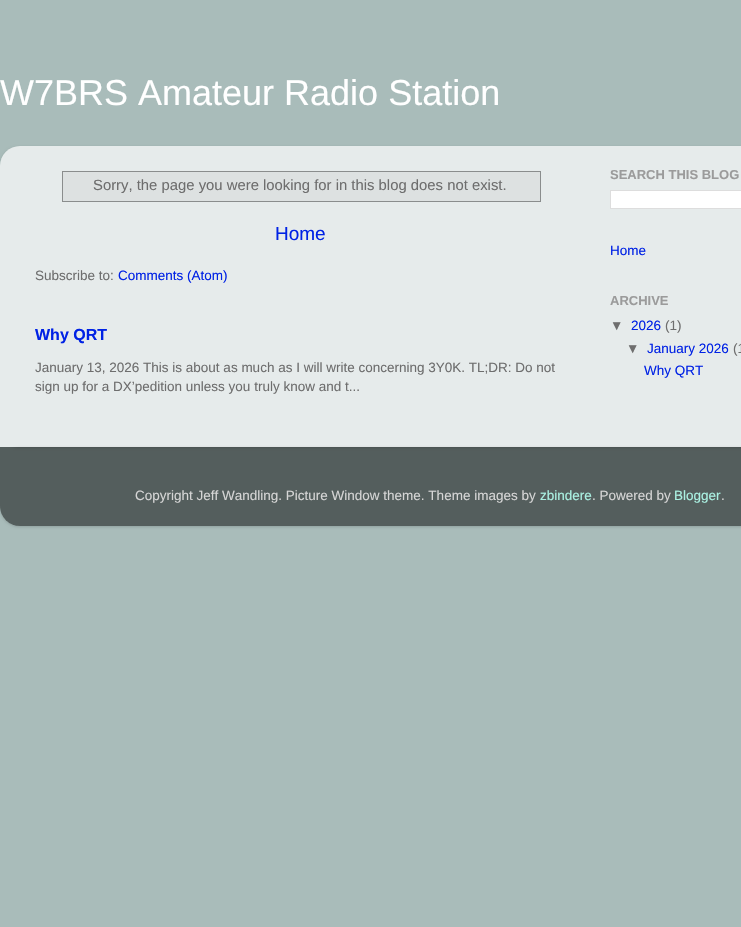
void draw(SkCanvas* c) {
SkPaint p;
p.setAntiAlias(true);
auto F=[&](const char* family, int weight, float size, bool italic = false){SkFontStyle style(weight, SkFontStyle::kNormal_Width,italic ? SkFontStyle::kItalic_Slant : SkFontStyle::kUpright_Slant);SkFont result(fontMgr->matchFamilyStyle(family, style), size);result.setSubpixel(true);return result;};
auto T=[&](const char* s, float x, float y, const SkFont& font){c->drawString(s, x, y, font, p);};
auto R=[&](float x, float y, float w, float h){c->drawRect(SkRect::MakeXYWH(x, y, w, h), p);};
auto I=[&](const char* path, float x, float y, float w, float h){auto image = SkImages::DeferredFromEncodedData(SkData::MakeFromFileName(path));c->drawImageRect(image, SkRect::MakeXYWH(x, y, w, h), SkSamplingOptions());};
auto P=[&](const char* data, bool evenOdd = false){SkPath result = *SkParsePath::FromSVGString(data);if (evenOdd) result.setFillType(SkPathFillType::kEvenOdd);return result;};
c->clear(0xffa9bcba);
auto f1 = F("Liberation Sans",400,36);
p.setColor(0xffffffff);
T("W7BRS Amateur Radio Station",0,105,f1);
c->save();
c->clipPath(P("M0 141h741v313h-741zm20 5h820c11 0 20 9 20 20v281h-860v-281c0-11 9-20 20-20z",true),true);
p.setColor(0x26000000);
p.setMaskFilter(SkMaskFilter::MakeBlur(kNormal_SkBlurStyle, 1.5));
c->drawRoundRect(SkRect::MakeXYWH(0,147,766,301),20,20,p);
p.setMaskFilter(nullptr);
c->restore();
I("1.png",0,146,741,301);
p.setStroke(true);
p.setStrokeWidth(1);
p.setColor(0xff8a8d8d);
c->drawRect(SkRect::MakeXYWH(62.5,171.5,478,30),p);
p.setStroke(false);
p.setColor(0xffdde1e1);
R(63,172,477,29);
auto f2 = F("Liberation Sans",400,14.85);
p.setColor(0xff6e6e6e);
T("Sorry, the page you were looking for in this blog does not exist.",93,190,f2);
auto f3 = F("Liberation Sans",400,19);
p.setColor(0xff0022e5);
T("Home",275,240,f3);
auto f4 = F("Liberation Sans",400,13.5);
p.setColor(0xff6e6e6e);
T("Subscribe to:",35,280,f4);
p.setColor(0xff0022e5);
T("Comments (Atom)",118,280,f4);
auto f5 = F("Liberation Sans",700,16);
T("Why QRT",35,340,f5);
p.setColor(0xff6e6e6e);
T("January 13, 2026 This is about as much as I will write concerning 3Y0K. TL;DR: Do not",35,372,f4);
T("sign up for a DX’pedition unless you truly know and t...",35,391,f4);
auto f6 = F("Liberation Sans",700,13);
p.setColor(0xff9b9b9b);
T("SEARCH THIS BLOG",610,179,f6);
p.setColor(0xffffffff);
c->drawRect(SkRect::MakeXYWH(610.5,190.5,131,18),p);
p.setStroke(true);
p.setColor(0xffdddddd);
c->drawRect(SkRect::MakeXYWH(610.5,190.5,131,18),p);
p.setStroke(false);
p.setColor(0xff0022e5);
T("Home",610,255,f4);
p.setColor(0xff9b9b9b);
T("ARCHIVE",610,305,f6);
p.setColor(0xff6e6e6e);
T("▼",610,330,f4);
p.setColor(0xff0022e5);
T("2026",631,330,f4);
p.setColor(0xff6e6e6e);
T("(1)",665,330,f4);
T("▼",626,353,f4);
p.setColor(0xff0022e5);
T("January 2026",647,353,f4);
p.setColor(0xff6e6e6e);
T("(1",733,353,f4);
p.setColor(0xff0022e5);
T("Why QRT",644,375,f4);
c->save();
c->clipPath(P("M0 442h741v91h-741zm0 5h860v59c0 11-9 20-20 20h-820c-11 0-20-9-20-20z",true),true);
p.setColor(0x26000000);
p.setMaskFilter(SkMaskFilter::MakeBlur(kNormal_SkBlurStyle, 1.5));
c->drawRoundRect(SkRect::MakeXYWH(0,448,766,79),20,20,p);
p.setMaskFilter(nullptr);
c->restore();
I("2.png",0,447,741,79);
p.setColor(0xffd5d5d5);
T("Copyright Jeff Wandling. Picture Window theme. Theme images by",135,500,f4);
p.setColor(0xffaaf1e2);
T("zbindere",540,500,f4);
p.setColor(0xffd5d5d5);
T(". Powered by",592,500,f4);
p.setColor(0xffaaf1e2);
T("Blogger",674,500,f4);
p.setColor(0xffd5d5d5);
T(".",721,500,f4);
}
